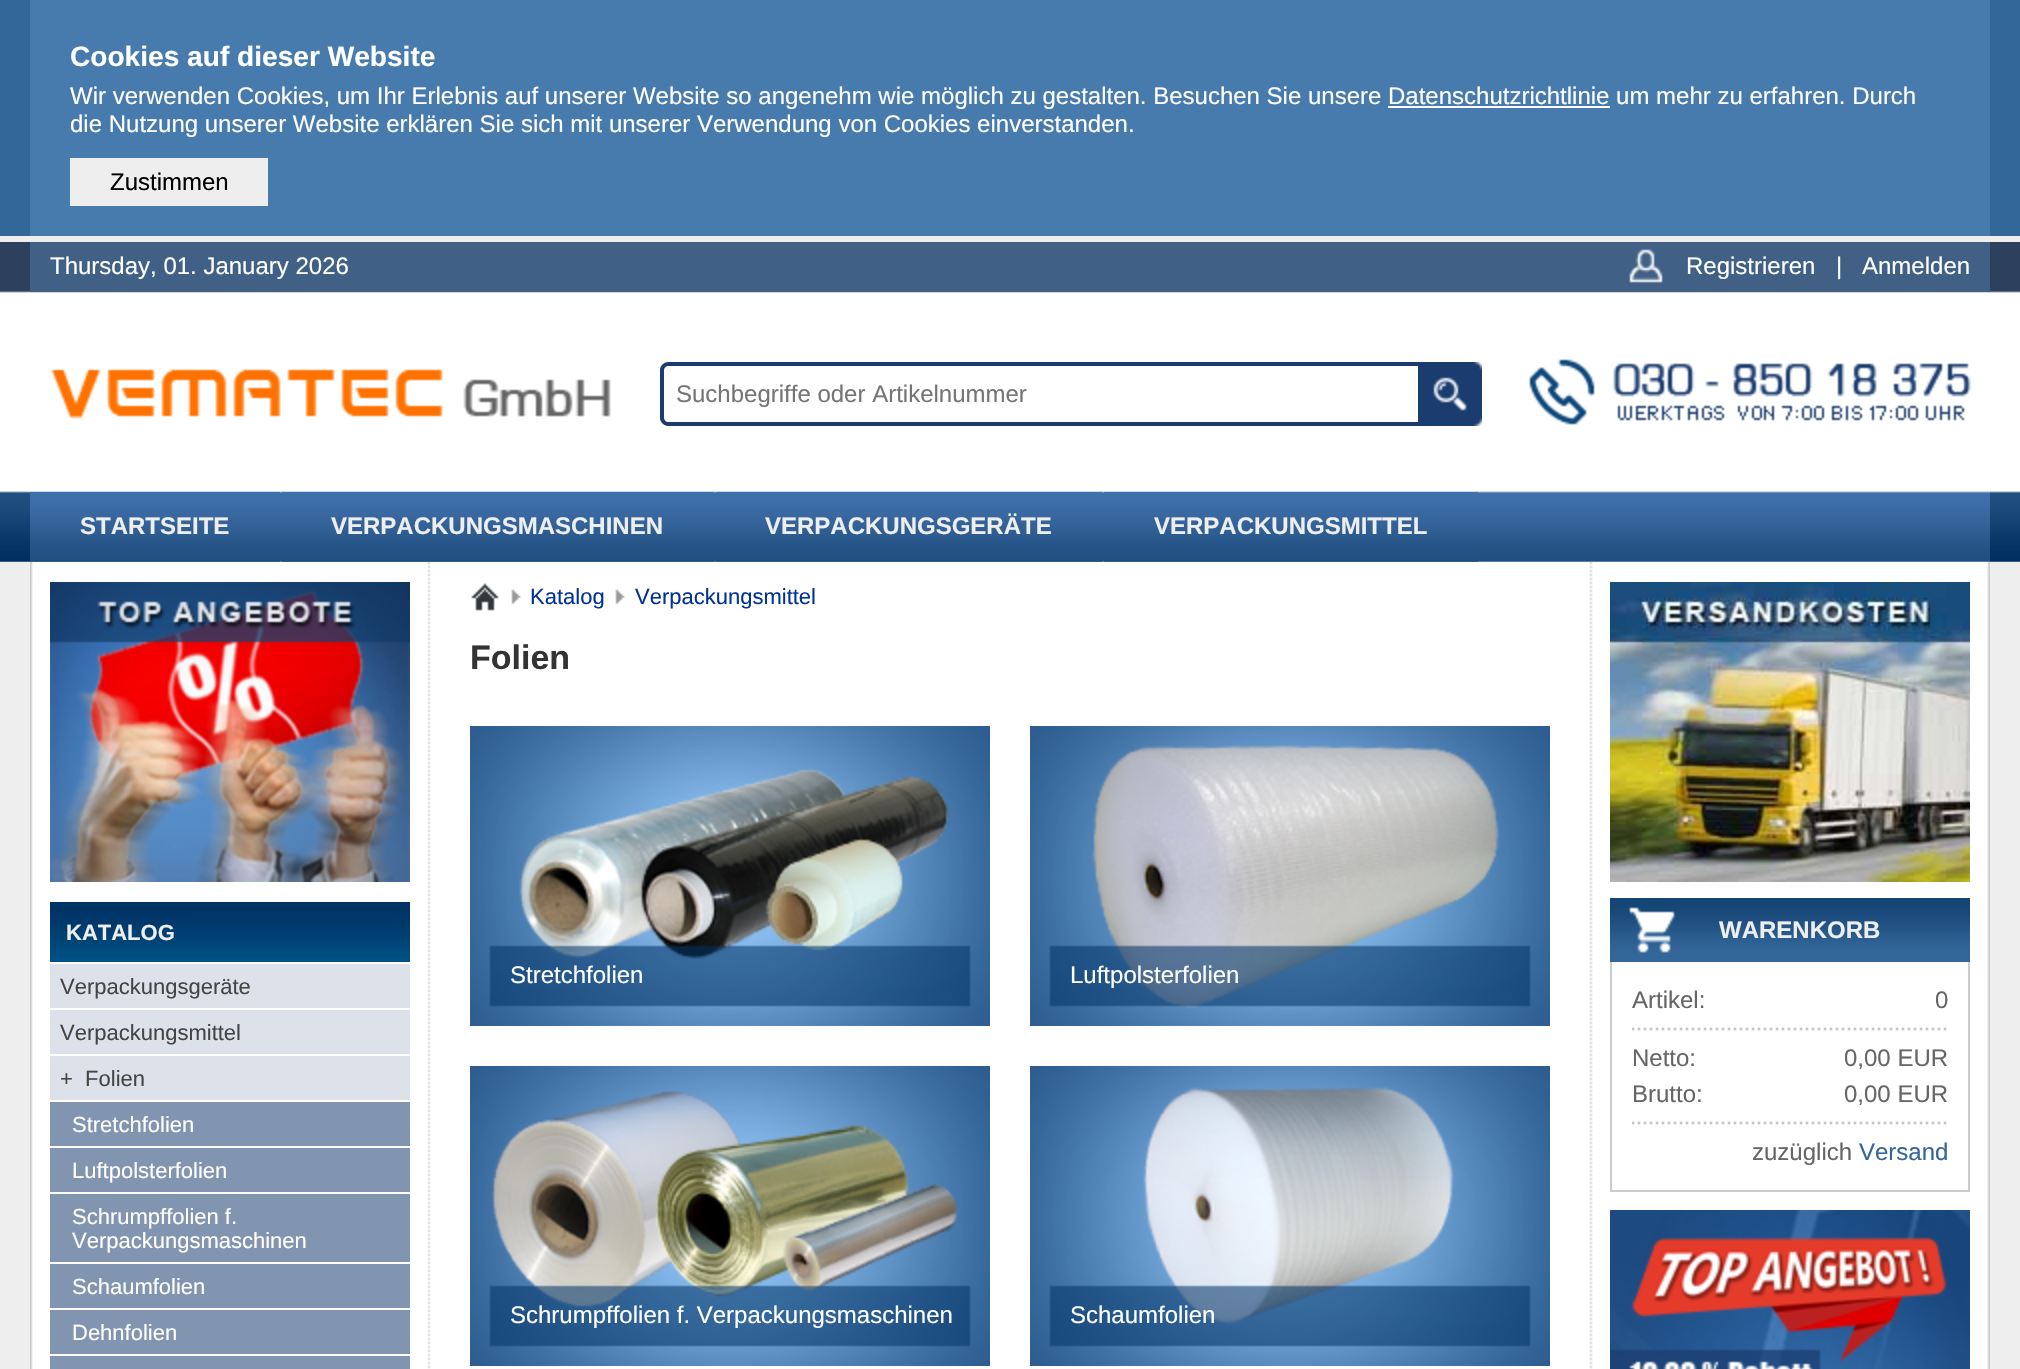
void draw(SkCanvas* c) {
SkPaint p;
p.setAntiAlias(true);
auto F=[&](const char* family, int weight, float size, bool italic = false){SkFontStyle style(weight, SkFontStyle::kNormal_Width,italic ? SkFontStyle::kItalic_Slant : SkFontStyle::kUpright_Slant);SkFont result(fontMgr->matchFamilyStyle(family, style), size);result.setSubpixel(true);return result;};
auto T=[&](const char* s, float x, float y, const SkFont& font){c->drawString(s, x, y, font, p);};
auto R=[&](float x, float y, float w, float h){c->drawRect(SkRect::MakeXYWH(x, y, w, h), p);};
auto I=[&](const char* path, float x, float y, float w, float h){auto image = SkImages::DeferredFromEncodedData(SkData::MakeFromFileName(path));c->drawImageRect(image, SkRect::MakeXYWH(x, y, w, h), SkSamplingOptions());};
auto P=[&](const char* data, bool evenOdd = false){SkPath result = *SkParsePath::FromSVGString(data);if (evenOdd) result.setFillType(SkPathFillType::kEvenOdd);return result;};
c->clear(0xffeeeeee);
p.setColor(0xff336699);
R(0,0,2020,236);
p.setColor(0xff477aad);
R(30,0,1960,236);
auto f1 = F("Liberation Sans",700,28.1);
p.setColor(0xffffffff);
T("Cookies auf dieser Website",70,66,f1);
auto f2 = F("Liberation Sans",400,24);
T("Wir verwenden Cookies, um Ihr Erlebnis auf unserer Website so angenehm wie möglich zu gestalten. Besuchen Sie unsere Datenschutzrichtlinie um mehr zu erfahren. Durch",70,104,f2);
R(1388,106,222,2);
T("die Nutzung unserer Website erklären Sie sich mit unserer Verwendung von Cookies einverstanden.",70,132,f2);
p.setColor(0xffeeeeee);
R(70,158,198,48);
p.setColor(0xff000000);
T("Zustimmen",110,190,f2);
I("1.png",0,242,2020,320);
I("2.png",30,292,1960,270);
p.setColor(0xff406085);
R(30,242,1960,50);
p.setColor(0xffffffff);
T("Thursday, 01. January 2026",50,274,f2);
I("3.png",1629,249,34,34);
T("Registrieren",1686,274,f2);
T("|",1836,274,f2);
T("Anmelden",1862,274,f2);
I("4.png",51,369,560,50);
p.setColor(0xff1a3c6f);
c->drawPath(P("M668 362h750v64h-750c-4 0-8-4-8-8v-48c0-4 4-8 8-8zm0 4h750v56h-750c-2 0-4-2-4-4v-48c0-2 2-4 4-4z",true),p);
p.setColor(0xff757575);
T("Suchbegriffe oder Artikelnummer",676,402,f2);
I("5.png",1418,362,64,64);
I("6.png",1529,359,442,66);
I("7.png",30,492,250,70);
auto f3 = F("Liberation Sans",700,24);
p.setColor(0xffeeeeee);
T("STARTSEITE",80,534,f3);
I("8.png",282,492,432,70);
T("VERPACKUNGSMASCHINEN",331,534,f3);
I("9.png",716,492,386,70);
T("VERPACKUNGSGERÄTE",765,534,f3);
I("10.png",1104,492,374,70);
T("VERPACKUNGSMITTEL",1154,534,f3);
I("11.png",30,562,1960,807);
I("12.png",50,582,360,300);
I("13.png",50,902,360,60);
auto f4 = F("Liberation Sans",700,22);
T("KATALOG",66,940,f4);
p.setColor(0xffdde2ea);
R(50,964,360,44);
auto f5 = F("Liberation Sans",400,22);
p.setColor(0xff454545);
T("Verpackungsgeräte",60,994,f5);
p.setColor(0xffdde2ea);
R(50,1010,360,44);
p.setColor(0xff454545);
T("Verpackungsmittel",60,1040,f5);
p.setColor(0xffdde2ea);
R(50,1056,360,44);
p.setColor(0xff454545);
T("+  Folien",60,1086,f5);
p.setColor(0xff8194b0);
R(50,1102,360,44);
p.setColor(0xffffffff);
T("Stretchfolien",72,1132,f5);
p.setColor(0xff8194b0);
R(50,1148,360,44);
p.setColor(0xffffffff);
T("Luftpolsterfolien",72,1178,f5);
p.setColor(0xff8194b0);
R(50,1194,360,68);
p.setColor(0xffffffff);
T("Schrumpffolien f.",72,1224,f5);
T("Verpackungsmaschinen",72,1248,f5);
p.setColor(0xff8194b0);
R(50,1264,360,44);
p.setColor(0xffffffff);
T("Schaumfolien",72,1294,f5);
p.setColor(0xff8194b0);
R(50,1310,360,44);
p.setColor(0xffffffff);
T("Dehnfolien",72,1340,f5);
p.setColor(0xff8194b0);
R(50,1356,360,13);
I("14.png",471,583,28,28);
I("15.png",511,589,10,16);
p.setColor(0xff003399);
T("Katalog",530,604,f5);
I("15.png",615,589,10,16);
T("Verpackungsmittel",635,604,f5);
auto f6 = F("Liberation Sans",700,34);
p.setColor(0xff333333);
T("Folien",470,669,f6);
I("16.png",470,726,520,300);
p.setColor(0xffffffff);
T("Stretchfolien",510,983,f2);
I("17.png",1030,726,520,300);
T("Luftpolsterfolien",1070,983,f2);
I("18.png",470,1066,520,300);
T("Schrumpffolien f. Verpackungsmaschinen",510,1323,f2);
I("19.png",1030,1066,520,300);
T("Schaumfolien",1070,1323,f2);
I("20.png",1610,582,360,300);
p.setColor(0xff336699);
R(1610,953,360,9);
I("21.png",1610,898,360,55);
p.setColor(0xffeeeeee);
T("WARENKORB",1719,938,f3);
p.setColor(0xffcccccc);
R(1968,962,2,230);
R(1610,1190,360,2);
R(1610,962,2,230);
p.setColor(0xff666666);
T("Artikel:",1632,1008,f2);
T("0",1935,1008,f2);
I("22.png",1632,1027,315,4);
T("Netto:",1632,1066,f2);
T("0,00 EUR",1844,1066,f2);
T("Brutto:",1632,1102,f2);
T("0,00 EUR",1844,1102,f2);
I("22.png",1632,1121,315,4);
T("zuzüglich",1752,1160,f2);
p.setColor(0xff336699);
T("Versand",1859,1160,f2);
I("23.png",1610,1210,360,159);
}
